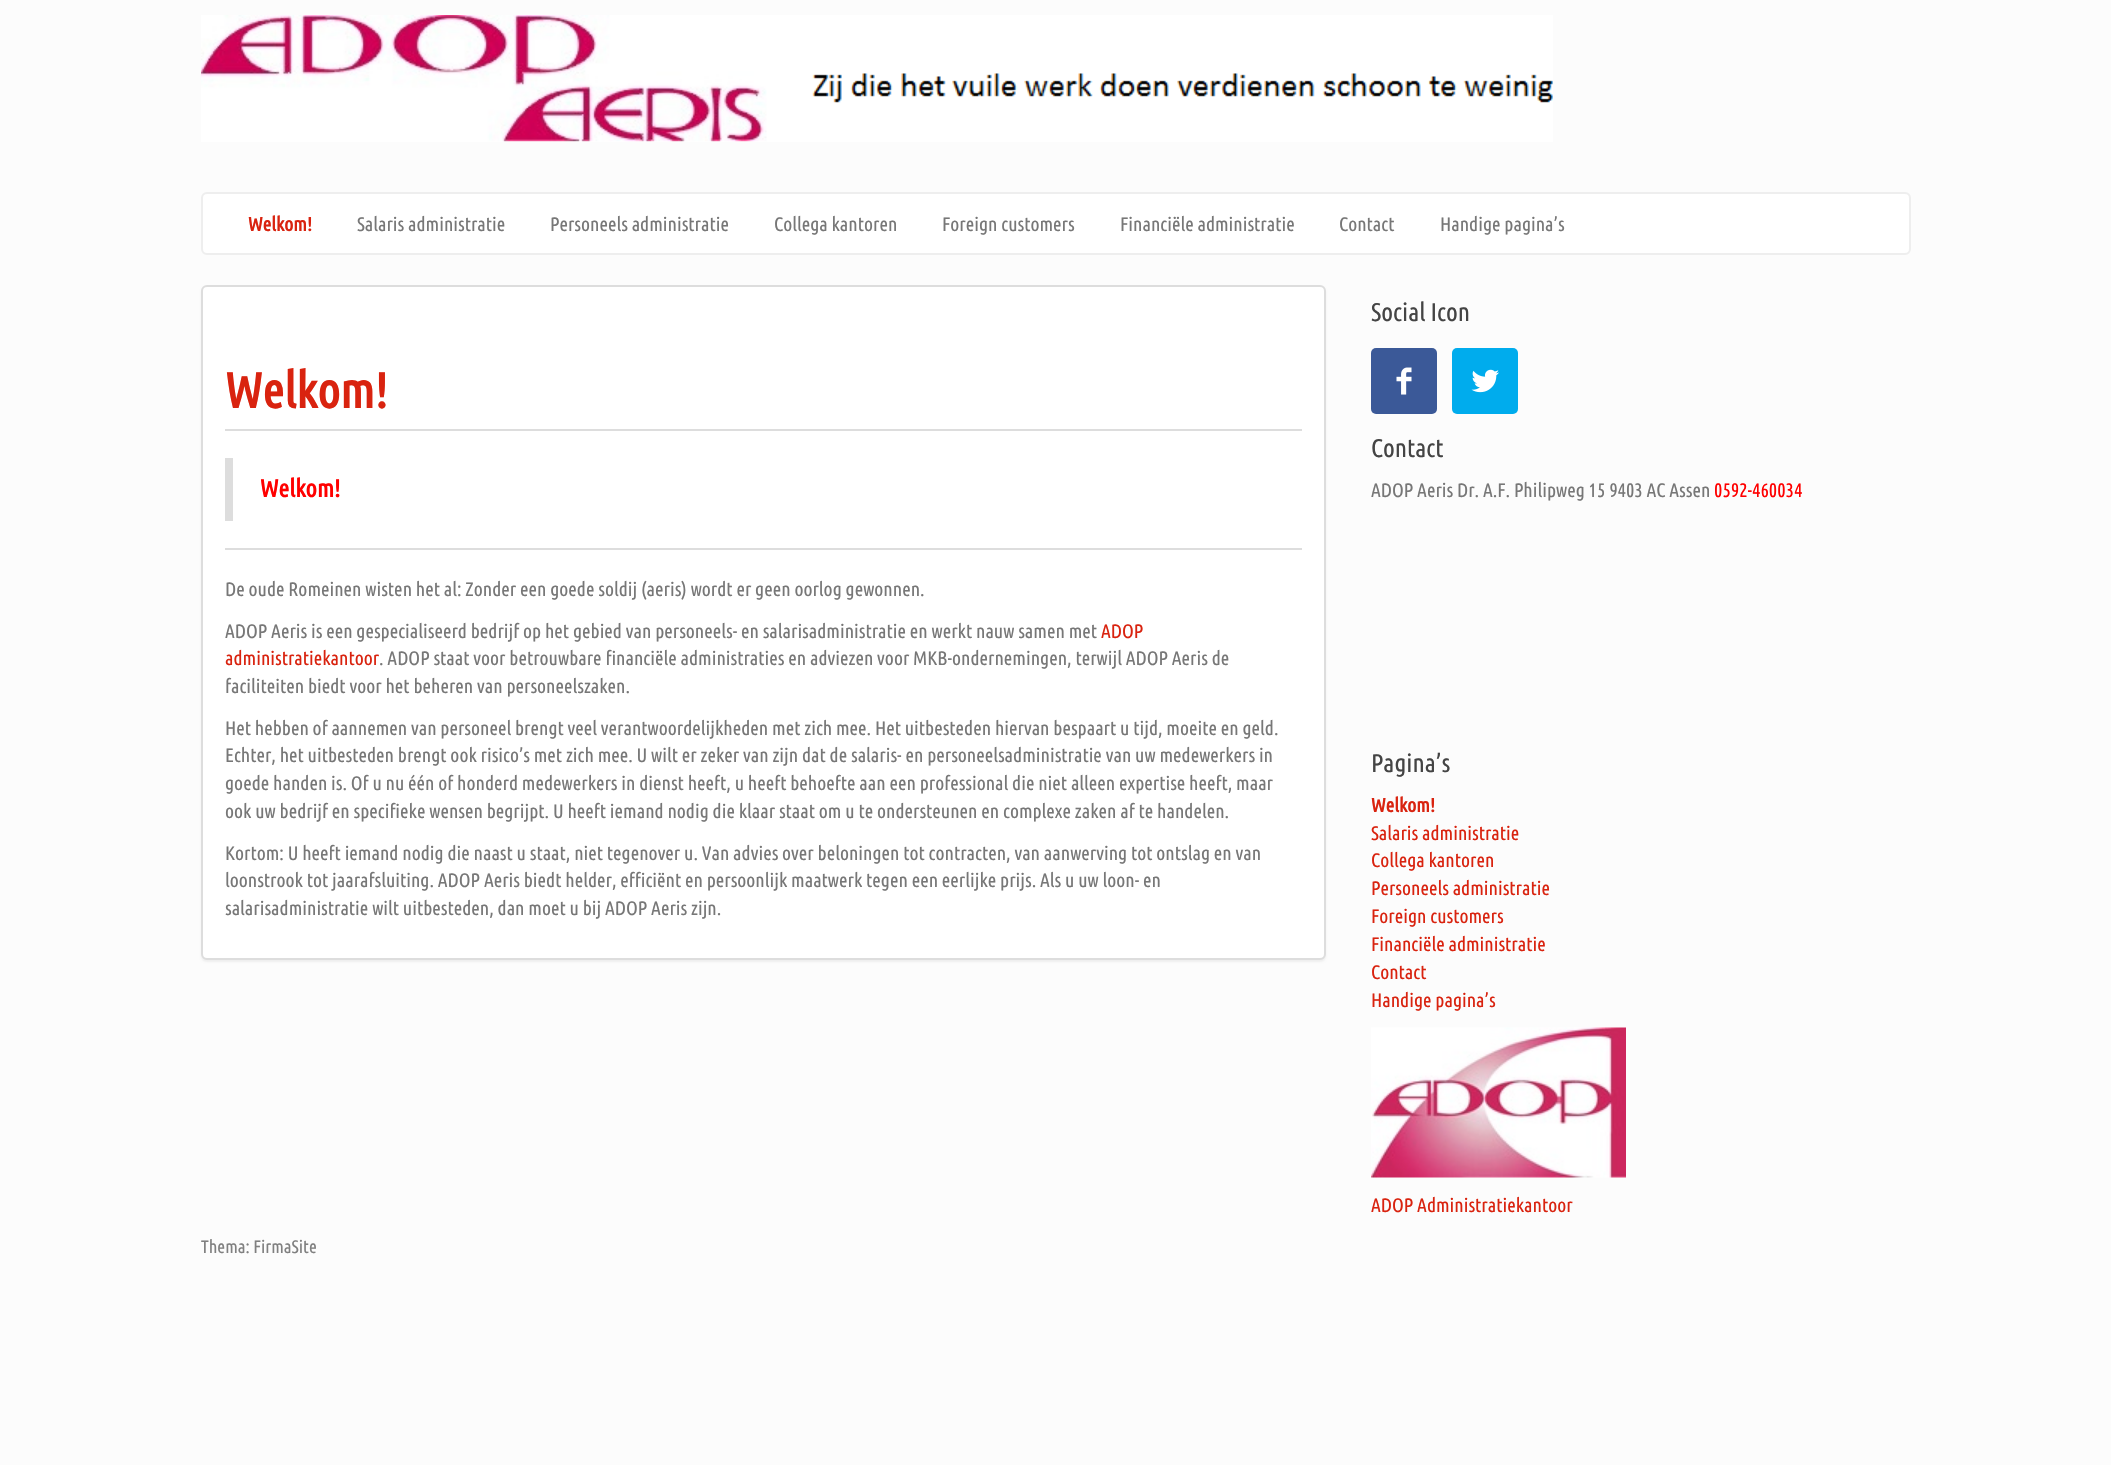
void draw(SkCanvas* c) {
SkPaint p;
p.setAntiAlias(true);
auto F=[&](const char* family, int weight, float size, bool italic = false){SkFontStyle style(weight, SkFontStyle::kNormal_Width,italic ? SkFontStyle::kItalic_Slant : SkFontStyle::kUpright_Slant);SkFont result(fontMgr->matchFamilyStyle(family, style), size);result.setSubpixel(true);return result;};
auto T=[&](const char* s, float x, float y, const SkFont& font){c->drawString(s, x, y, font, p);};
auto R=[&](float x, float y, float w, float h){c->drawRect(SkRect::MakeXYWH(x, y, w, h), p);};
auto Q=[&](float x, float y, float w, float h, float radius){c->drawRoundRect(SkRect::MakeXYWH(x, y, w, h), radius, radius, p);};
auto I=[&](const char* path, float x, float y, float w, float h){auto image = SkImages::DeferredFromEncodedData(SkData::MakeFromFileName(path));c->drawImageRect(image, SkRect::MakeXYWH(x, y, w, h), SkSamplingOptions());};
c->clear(0xfffcfcfc);
I("1.png",201,15,1352,127);
p.setColor(0xffffffff);
c->drawRoundRect(SkRect::MakeXYWH(202,193,1708,61),5,5,p);
p.setStroke(true);
p.setStrokeWidth(2);
p.setColor(0xffeeeeee);
c->drawRoundRect(SkRect::MakeXYWH(202,193,1708,61),5,5,p);
auto f1 = F("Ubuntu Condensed",700,19.5);
p.setStroke(false);
p.setColor(0xffd9230f);
T("Welkom!",248,231,f1);
auto f2 = F("Ubuntu Condensed",400,19.5);
p.setColor(0xff777777);
T("Salaris administratie",357,231,f2);
T("Personeels administratie",550,231,f2);
T("Collega kantoren",774,231,f2);
T("Foreign customers",942,231,f2);
T("Financiële administratie",1120,231,f2);
T("Contact",1339,231,f2);
T("Handige pagina’s",1440,231,f2);
p.setColor(0x0d000000);
p.setMaskFilter(SkMaskFilter::MakeBlur(kNormal_SkBlurStyle, 1));
c->drawRoundRect(SkRect::MakeXYWH(201,287,1125,675),6,6,p);
p.setMaskFilter(nullptr);
p.setColor(0xffffffff);
c->drawRoundRect(SkRect::MakeXYWH(202,286,1123,673),5,5,p);
p.setStroke(true);
p.setColor(0xffdddddd);
c->drawRoundRect(SkRect::MakeXYWH(202,286,1123,673),5,5,p);
p.setStroke(false);
R(225,429,1077,2);
auto f3 = F("Ubuntu Condensed",700,49.5);
p.setColor(0xffd9230f);
T("Welkom!",225,408,f3);
p.setColor(0xffdddddd);
R(225,458,8,63);
auto f4 = F("Ubuntu Condensed",700,24.5);
p.setColor(0xffff0000);
T("Welkom!",260,497,f4);
p.setColor(0xffdddddd);
R(225,548,1077,2);
p.setColor(0xff777777);
T("De oude Romeinen wisten het al: Zonder een goede soldij (aeris) wordt er geen oorlog gewonnen.",225,596,f2);
T("ADOP Aeris is een gespecialiseerd bedrijf op het gebied van personeels- en salarisadministratie en werkt nauw samen met",225,638,f2);
p.setColor(0xffd9230f);
T("ADOP",1101,638,f2);
T("administratiekantoor",225,665,f2);
p.setColor(0xff777777);
T(". ADOP staat voor betrouwbare financiële administraties en adviezen voor MKB-ondernemingen, terwijl ADOP Aeris de",379,665,f2);
T("faciliteiten biedt voor het beheren van personeelszaken.",225,693,f2);
T("Het hebben of aannemen van personeel brengt veel verantwoordelijkheden met zich mee. Het uitbesteden hiervan bespaart u tijd, moeite en geld.",225,735,f2);
T("Echter, het uitbesteden brengt ook risico’s met zich mee. U wilt er zeker van zijn dat de salaris- en personeelsadministratie van uw medewerkers in",225,762,f2);
T("goede handen is. Of u nu één of honderd medewerkers in dienst heeft, u heeft behoefte aan een professional die niet alleen expertise heeft, maar",225,790,f2);
T("ook uw bedrijf en specifieke wensen begrijpt. U heeft iemand nodig die klaar staat om u te ondersteunen en complexe zaken af te handelen.",225,818,f2);
T("Kortom: U heeft iemand nodig die naast u staat, niet tegenover u. Van advies over beloningen tot contracten, van aanwerving tot ontslag en van",225,860,f2);
T("loonstrook tot jaarafsluiting. ADOP Aeris biedt helder, efficiënt en persoonlijk maatwerk tegen een eerlijke prijs. Als u uw loon- en",225,887,f2);
T("salarisadministratie wilt uitbesteden, dan moet u bij ADOP Aeris zijn.",225,915,f2);
auto f5 = F("Ubuntu Condensed",400,25.5);
p.setColor(0xff444444);
T("Social Icon",1371,321,f5);
p.setColor(0xff3b5998);
Q(1371,348,66,66,5);
I("2.png",1396,367,16,28);
p.setColor(0xff00aced);
Q(1452,348,66,66,5);
I("3.png",1471,369,28,24);
p.setColor(0xff444444);
T("Contact",1371,457,f5);
p.setColor(0xff777777);
T("ADOP Aeris Dr. A.F. Philipweg 15 9403 AC Assen",1371,497,f2);
p.setColor(0xffff0000);
T("0592-460034",1714,497,f2);
p.setColor(0xff444444);
T("Pagina’s",1371,772,f5);
p.setColor(0xffd9230f);
T("Welkom!",1371,812,f1);
T("Salaris administratie",1371,840,f2);
T("Collega kantoren",1371,867,f2);
T("Personeels administratie",1371,895,f2);
T("Foreign customers",1371,923,f2);
T("Financiële administratie",1371,951,f2);
T("Contact",1371,979,f2);
T("Handige pagina’s",1371,1007,f2);
I("4.png",1371,1027,255,151);
T("ADOP Administratiekantoor",1371,1212,f2);
auto f6 = F("Ubuntu Condensed",400,18);
p.setColor(0xff808080);
T("Thema: FirmaSite",201,1253,f6);
}
